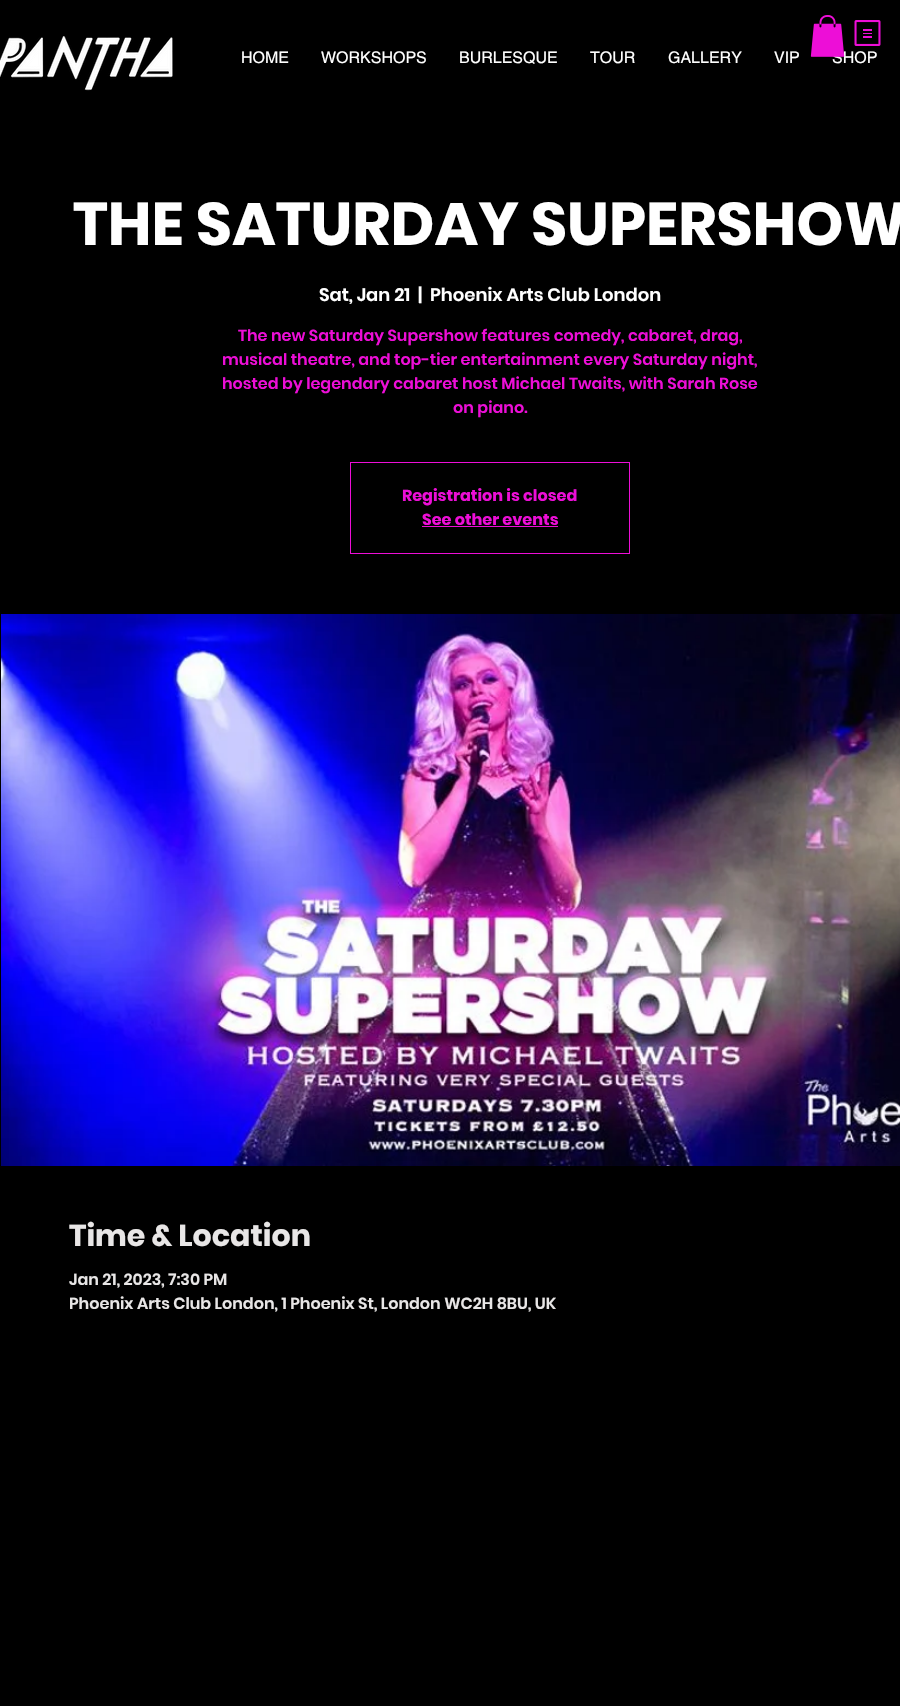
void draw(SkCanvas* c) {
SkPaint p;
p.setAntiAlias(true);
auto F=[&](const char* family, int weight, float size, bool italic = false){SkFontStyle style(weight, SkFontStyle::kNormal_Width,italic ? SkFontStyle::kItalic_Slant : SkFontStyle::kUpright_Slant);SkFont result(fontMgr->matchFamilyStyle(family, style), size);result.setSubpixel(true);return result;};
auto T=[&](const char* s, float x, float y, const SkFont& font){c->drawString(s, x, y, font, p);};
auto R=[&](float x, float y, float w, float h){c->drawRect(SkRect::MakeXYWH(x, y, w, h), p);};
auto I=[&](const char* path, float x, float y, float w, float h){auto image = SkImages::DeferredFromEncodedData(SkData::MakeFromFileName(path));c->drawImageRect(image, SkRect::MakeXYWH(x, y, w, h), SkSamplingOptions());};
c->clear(0xff000000);
auto f1 = F("helvetica",400,16);
p.setColor(0xffffffff);
T("SHOP",832,63,f1);
I("1.png",810,15,35,42);
I("2.png",854,20,27,26);
I("3.png",0,36,173,55);
T("HOME",241,63,f1);
T("WORKSHOPS",321,63,f1);
T("BURLESQUE",459,63,f1);
T("TOUR",590,63,f1);
T("GALLERY",668,63,f1);
T("VIP",774,63,f1);
auto f2 = F("Poppins",700,60);
T("THE SATURDAY SUPERSHOW",73,245,f2);
auto f3 = F("Poppins",600,18);
T("Sat, Jan 21",319,301,f3);
T("|",418,301,f3);
T("Phoenix Arts Club London",430,301,f3);
auto f4 = F("Poppins",600,16);
p.setColor(0xffed0ed7);
T("The new Saturday Supershow features comedy, cabaret, drag,",238,341,f4);
T("musical theatre, and top-tier entertainment every Saturday night,",222,365,f4);
T("hosted by legendary cabaret host Michael Twaits, with Sarah Rose",222,389,f4);
T("on piano.",453,413,f4);
p.setStroke(true);
p.setStrokeWidth(1);
c->drawRect(SkRect::MakeXYWH(350.5,462.5,279,91),p);
auto f5 = F("Poppins",700,16);
p.setStroke(false);
T("Registration is closed",402,501,f5);
T("See other events",422,525,f5);
R(422,526,136,1);
I("4.png",1,614,899,552);
auto f6 = F("Poppins",700,30);
p.setColor(0xffe8e6e6);
T("Time & Location",69,1246,f6);
T("Jan 21, 2023, 7:30 PM",69,1285,f4);
T("Phoenix Arts Club London, 1 Phoenix St, London WC2H 8BU, UK",69,1309,f4);
}
